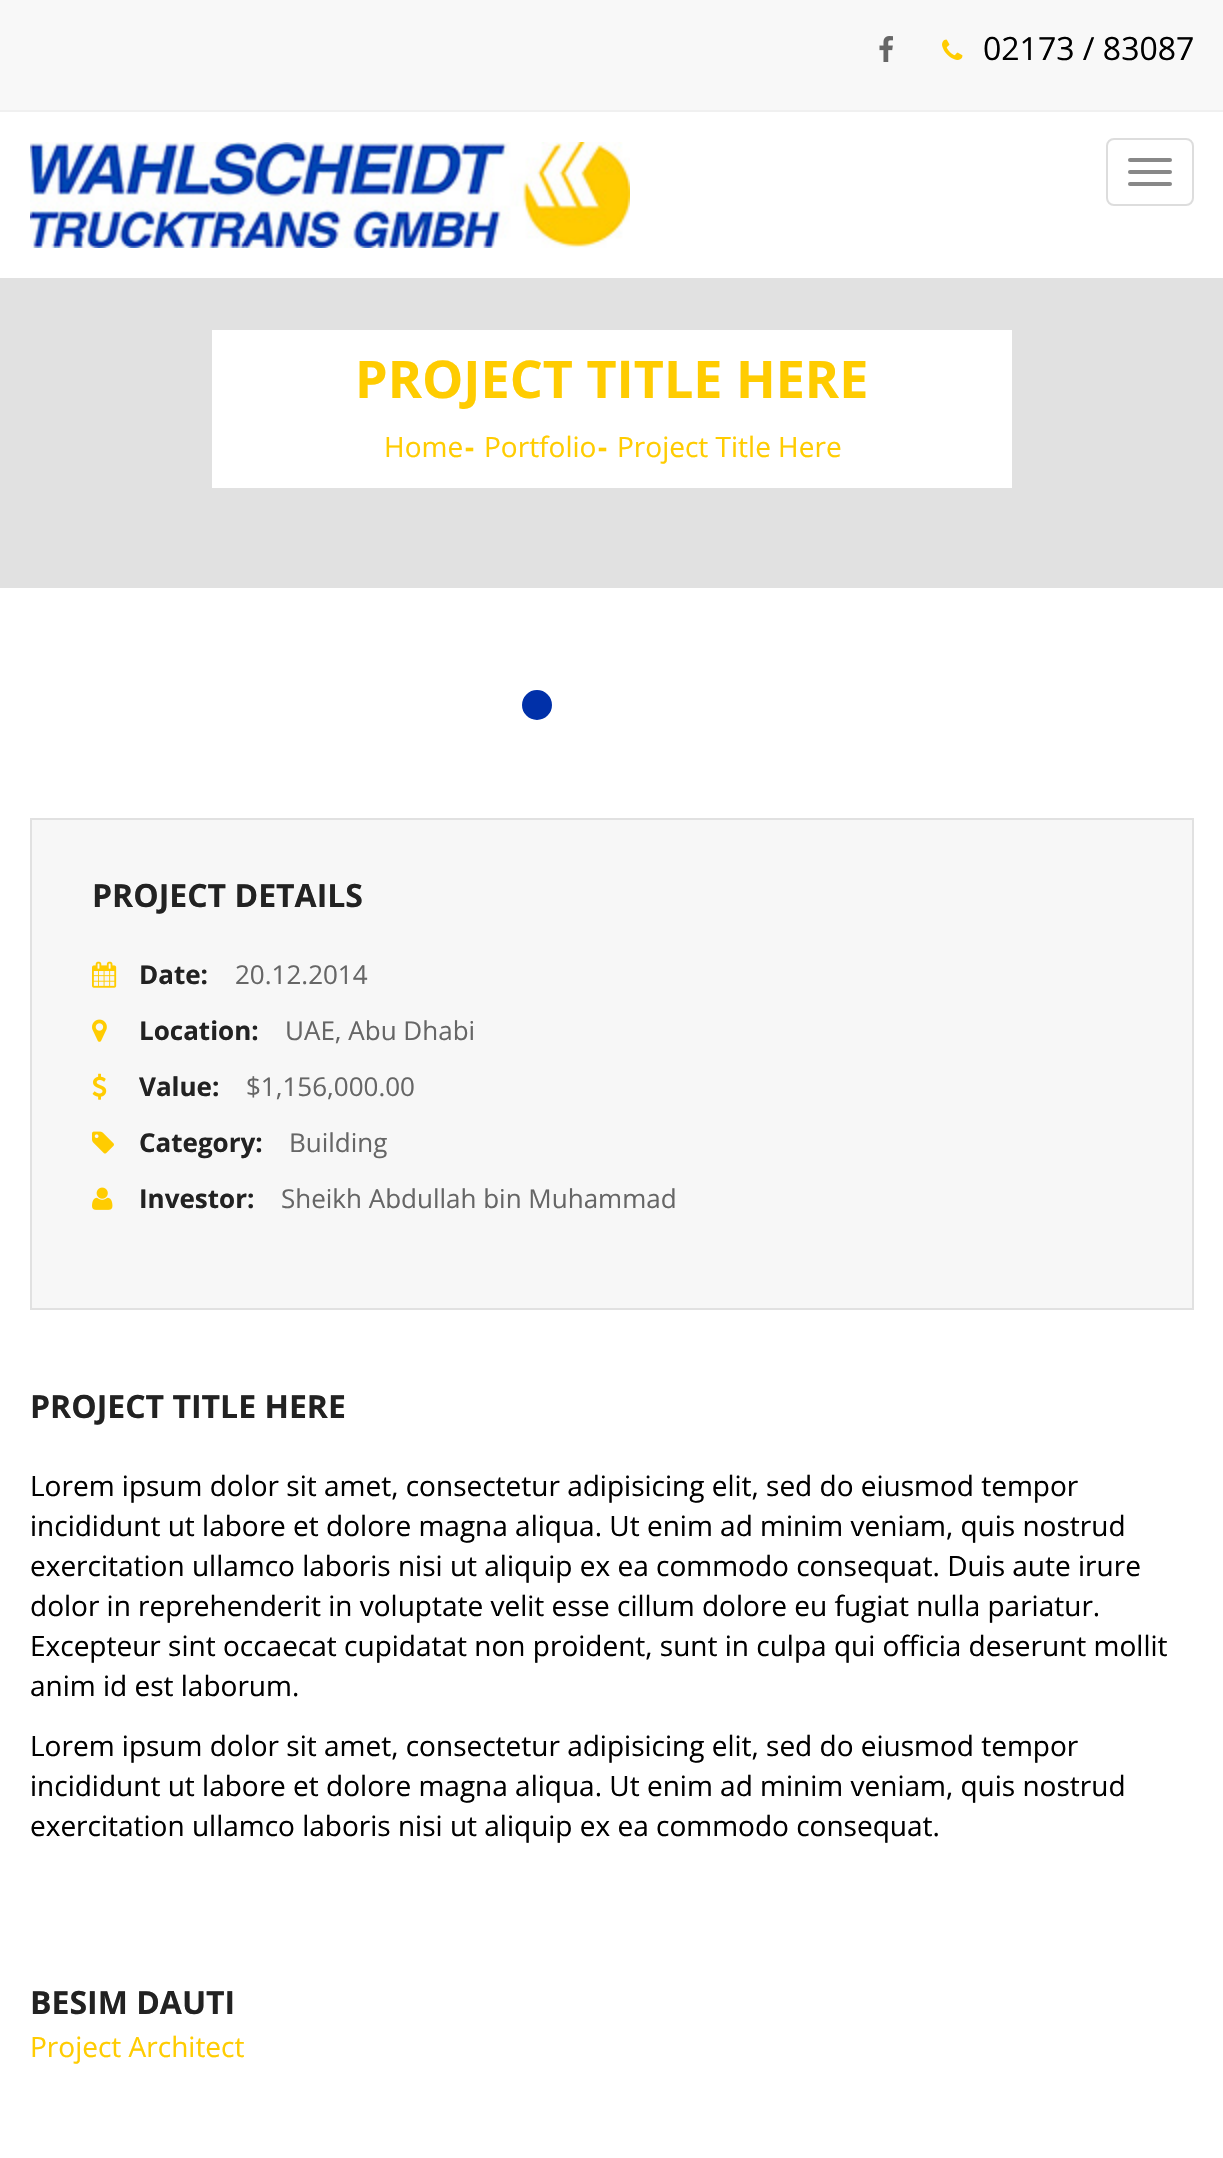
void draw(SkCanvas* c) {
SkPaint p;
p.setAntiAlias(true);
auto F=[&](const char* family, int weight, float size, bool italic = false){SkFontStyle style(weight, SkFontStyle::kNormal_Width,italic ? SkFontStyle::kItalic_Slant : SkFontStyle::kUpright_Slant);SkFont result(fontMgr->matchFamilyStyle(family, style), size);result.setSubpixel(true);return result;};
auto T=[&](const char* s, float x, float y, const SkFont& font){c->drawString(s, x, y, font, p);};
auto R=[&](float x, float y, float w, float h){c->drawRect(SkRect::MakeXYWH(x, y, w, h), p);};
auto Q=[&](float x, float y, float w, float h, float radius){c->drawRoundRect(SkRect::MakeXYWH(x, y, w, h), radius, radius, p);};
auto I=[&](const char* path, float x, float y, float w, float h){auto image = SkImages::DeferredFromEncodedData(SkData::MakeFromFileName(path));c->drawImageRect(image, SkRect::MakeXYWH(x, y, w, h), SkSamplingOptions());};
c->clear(0xffffffff);
p.setColor(0xfff8f8f8);
R(0,0,1223,110);
p.setColor(0xfff0f0f0);
R(0,110,1223,2);
I("1.png",879,36,14,26);
I("2.png",942,39,21,21);
auto f1 = F("Open Sans",400,32);
p.setColor(0xff000000);
T("02173 / 83087",983,60,f1);
I("3.png",30,142,600,106);
p.setStroke(true);
p.setStrokeWidth(2);
p.setColor(0xffdddddd);
c->drawRoundRect(SkRect::MakeXYWH(1107,139,86,66),7,7,p);
p.setStroke(false);
p.setColor(0xff888888);
Q(1128,158,44,4,2);
Q(1128,170,44,4,2);
Q(1128,182,44,4,2);
p.setColor(0xffe1e1e1);
R(0,278,1223,310);
p.setColor(0xffffffff);
R(212,330,800,158);
auto f2 = F("Open Sans",700,52);
p.setColor(0xffffcc01);
T("PROJECT TITLE HERE",355,398,f2);
auto f3 = F("Open Sans",400,28);
T("Home",384,457,f3);
auto f4 = F("Open Sans",700,28);
T("-",465,457,f4);
T("Portfolio",484,457,f3);
T("-",598,457,f4);
T("Project Title Here",617,457,f3);
p.setColor(0xff0030a9);
c->drawCircle(537,705,14,p);
p.setStroke(true);
c->drawCircle(537,705,14,p);
p.setStroke(false);
p.setColor(0xfff7f7f7);
c->drawRect(SkRect::MakeXYWH(31,819,1162,490),p);
p.setStroke(true);
p.setColor(0xffe1e1e1);
c->drawRect(SkRect::MakeXYWH(31,819,1162,490),p);
auto f5 = F("Open Sans",700,32);
p.setStroke(false);
p.setColor(0xff222222);
T("PROJECT DETAILS",92,907,f5);
I("4.png",92,961,25,27);
auto f6 = F("Open Sans",700,26);
T("Date:",139,984,f6);
auto f7 = F("Open Sans",400,26);
p.setColor(0xff666666);
T("20.12.2014",235,984,f7);
I("5.png",92,1019,15,23);
p.setColor(0xff222222);
T("Location:",139,1040,f6);
p.setColor(0xff666666);
T("UAE, Abu Dhabi",285,1040,f7);
I("6.png",92,1073,15,27);
p.setColor(0xff222222);
T("Value:",139,1096,f6);
p.setColor(0xff666666);
T("$1,156,000.00",246,1096,f7);
I("7.png",92,1131,22,23);
p.setColor(0xff222222);
T("Category:",139,1152,f6);
p.setColor(0xff666666);
T("Building",289,1152,f7);
I("8.png",92,1187,21,23);
p.setColor(0xff222222);
T("Investor:",139,1208,f6);
p.setColor(0xff666666);
T("Sheikh Abdullah bin Muhammad",281,1208,f7);
p.setColor(0xff222222);
T("PROJECT TITLE HERE",30,1418,f5);
p.setColor(0xff000000);
T("Lorem ipsum dolor sit amet, consectetur adipisicing elit, sed do eiusmod tempor",30,1496,f3);
T("incididunt ut labore et dolore magna aliqua. Ut enim ad minim veniam, quis nostrud",30,1536,f3);
T("exercitation ullamco laboris nisi ut aliquip ex ea commodo consequat. Duis aute irure",30,1576,f3);
T("dolor in reprehenderit in voluptate velit esse cillum dolore eu fugiat nulla pariatur.",30,1616,f3);
T("Excepteur sint occaecat cupidatat non proident, sunt in culpa qui officia deserunt mollit",30,1656,f3);
T("anim id est laborum.",30,1696,f3);
T("Lorem ipsum dolor sit amet, consectetur adipisicing elit, sed do eiusmod tempor",30,1756,f3);
T("incididunt ut labore et dolore magna aliqua. Ut enim ad minim veniam, quis nostrud",30,1796,f3);
T("exercitation ullamco laboris nisi ut aliquip ex ea commodo consequat.",30,1836,f3);
p.setColor(0xff222222);
T("BESIM DAUTI",30,2014,f5);
p.setColor(0xffffcc01);
T("Project Architect",30,2057,f3);
}
